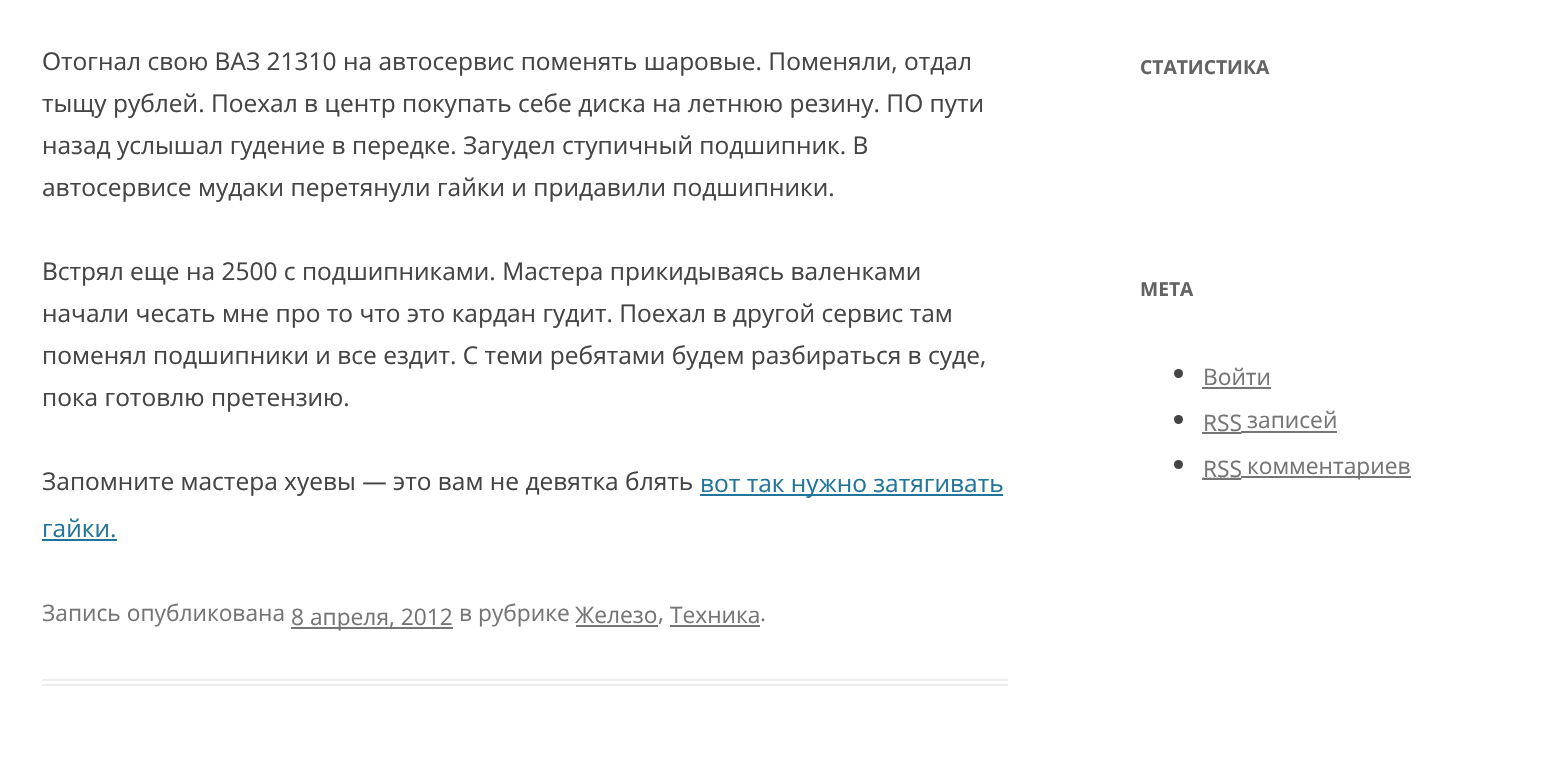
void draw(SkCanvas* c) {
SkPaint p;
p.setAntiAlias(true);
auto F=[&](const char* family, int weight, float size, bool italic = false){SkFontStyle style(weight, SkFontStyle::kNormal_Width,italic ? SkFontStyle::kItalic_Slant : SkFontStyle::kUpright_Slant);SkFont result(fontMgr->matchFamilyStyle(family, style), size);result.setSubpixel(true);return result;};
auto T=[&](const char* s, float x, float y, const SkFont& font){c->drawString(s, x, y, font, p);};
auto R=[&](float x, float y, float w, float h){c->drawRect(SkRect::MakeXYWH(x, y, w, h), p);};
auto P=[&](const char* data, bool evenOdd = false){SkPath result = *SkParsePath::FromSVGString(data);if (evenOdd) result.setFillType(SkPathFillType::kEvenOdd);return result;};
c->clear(0xffffffff);
p.setColor(0xffededed);
R(42,679,966,2);
R(42,684,966,2);
auto f1 = F("Open Sans",400,24.5);
p.setColor(0xff444444);
T("Отогнал свою ВАЗ 21310 на автосервис поменять шаровые. Поменяли, отдал",42,70,f1);
T("тыщу рублей. Поехал в центр покупать себе диска на летнюю резину. ПО пути",42,112,f1);
T("назад услышал гудение в передке. Загудел ступичный подшипник. В",42,154,f1);
T("автосервисе мудаки перетянули гайки и придавили подшипники.",42,196,f1);
T("Встрял еще на 2500 с подшипниками. Мастера прикидываясь валенками",42,280,f1);
T("начали чесать мне про то что это кардан гудит. Поехал в другой сервис там",42,322,f1);
T("поменял подшипники и все ездит. С теми ребятами будем разбираться в суде,",42,364,f1);
T("пока готовлю претензию.",42,406,f1);
T("Запомните мастера хуевы — это вам не девятка блять",42,490,f1);
p.setColor(0xff21759b);
R(700,494,303,2);
T("вот так нужно затягивать",700,492,f1);
T("гайки.",42,537,f1);
R(42,539,75,2);
auto f2 = F("Open Sans",400,22.75);
p.setColor(0xff757575);
T("Запись опубликована",42,621,f2);
R(291,627,162,2);
T("8 апреля, 2012",291,625,f2);
T("в рубрике",459,621,f2);
T("Железо",575,623,f2);
R(576,625,82,2);
T(",",658,621,f2);
T("Техника",670,623,f2);
R(670,625,90,2);
T(".",760,621,f2);
auto f3 = F("Open Sans",700,19.25);
p.setColor(0xff636363);
T("СТАТИСТИКА",1140,74,f3);
T("МЕТА",1140,296,f3);
p.setColor(0xff444444);
c->drawCircle(1178.5,373.5,4.5,p);
p.setColor(0xff757575);
T("Войти",1203,385,f2);
R(1202,387,69,2);
p.setColor(0xff444444);
c->drawCircle(1178.5,419.5,4.5,p);
p.setColor(0xff757575);
T("RSS",1203,431,f2);
p.setStroke(true);
p.setStrokeWidth(1.8);
p.setPathEffect(SkDashPathEffect::Make({{1.75f,1.75f}}, 0));
c->drawPath(P("M1202.5 433h39"),p);
p.setPathEffect(nullptr);
p.setStroke(false);
R(1202,432,39,2);
R(1241,431,96,2);
T("записей",1247,428,f2);
p.setColor(0xff444444);
c->drawCircle(1178.5,464.5,4.5,p);
p.setStroke(true);
p.setColor(0xff757575);
p.setPathEffect(SkDashPathEffect::Make({{1.75f,1.75f}}, 0));
c->drawPath(P("M1202.5 478.5h39"),p);
p.setPathEffect(nullptr);
p.setStroke(false);
T("RSS",1203,477,f2);
R(1202,478,39,2);
R(1241,476,170,2);
T("комментариев",1247,474,f2);
}
